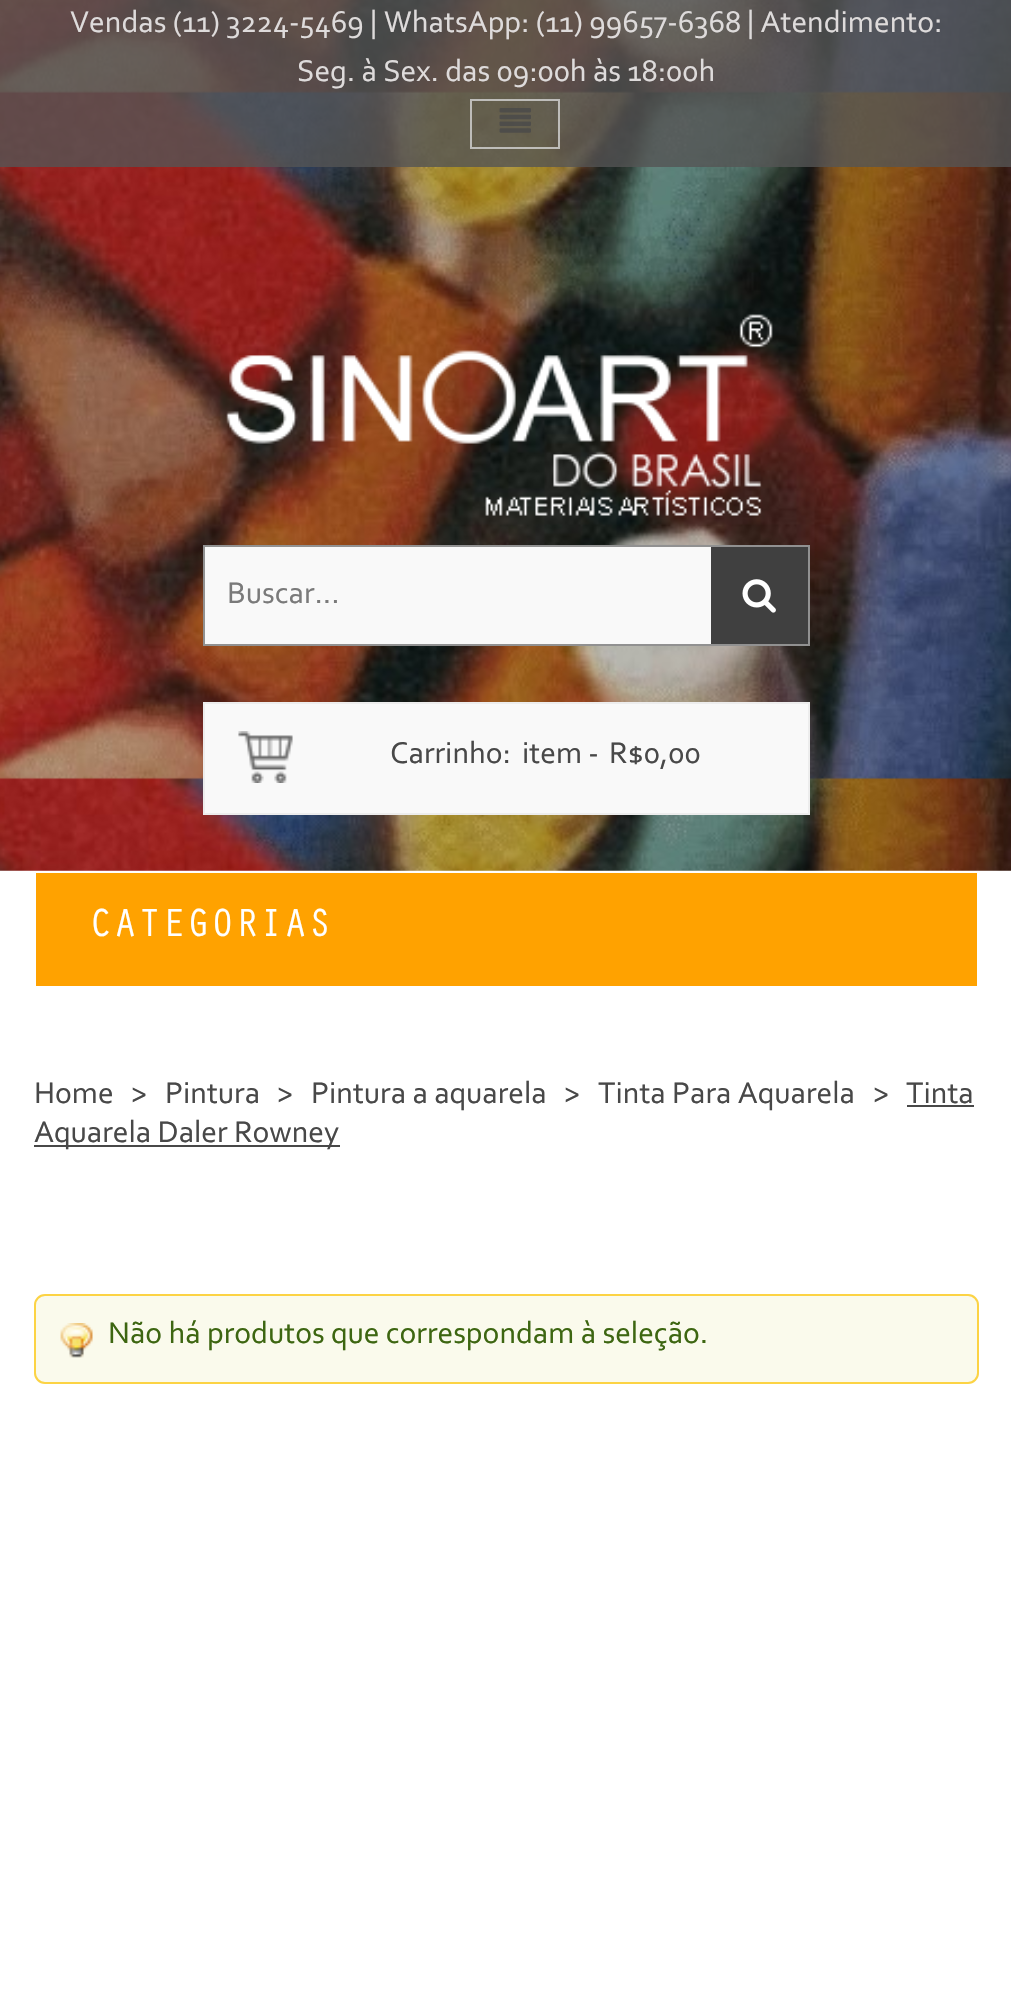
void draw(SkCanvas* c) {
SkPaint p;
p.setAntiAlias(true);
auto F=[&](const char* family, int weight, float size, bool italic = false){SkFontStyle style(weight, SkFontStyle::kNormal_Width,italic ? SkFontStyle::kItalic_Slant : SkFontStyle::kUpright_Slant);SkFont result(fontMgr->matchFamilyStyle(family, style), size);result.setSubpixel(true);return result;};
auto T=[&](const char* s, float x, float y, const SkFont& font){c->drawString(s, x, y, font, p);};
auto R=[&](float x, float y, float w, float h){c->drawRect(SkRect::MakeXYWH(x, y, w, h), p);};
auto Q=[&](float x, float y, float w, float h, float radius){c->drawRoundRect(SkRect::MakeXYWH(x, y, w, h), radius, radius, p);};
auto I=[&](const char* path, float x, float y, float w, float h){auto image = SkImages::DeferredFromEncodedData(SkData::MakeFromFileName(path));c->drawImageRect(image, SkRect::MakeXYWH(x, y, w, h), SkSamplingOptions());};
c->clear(0xffffffff);
I("1.png",0,0,1011,871);
p.setColor(0xcc545454);
R(0,0,1011,167);
auto f1 = F("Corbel",400,31.5);
p.setColor(0xffdedbdb);
T("Vendas (11) 3224-5469 |",70,32,f1);
T("WhatsApp: (11) 99657-6368",384,32,f1);
T("| Atendimento:",747,32,f1);
T("Seg. à Sex. das 09:00h às 18:00h",297,81,f1);
p.setStroke(true);
p.setStrokeWidth(2);
p.setColor(0xccd4d4d4);
c->drawRect(SkRect::MakeXYWH(471,100,88,48),p);
I("2.png",499,108,32,25);
I("3.png",226,314,547,202);
p.setStroke(false);
p.setColor(0xfff9f9f9);
R(205,547,506,97);
p.setStroke(true);
p.setColor(0xff919191);
c->drawRect(SkRect::MakeXYWH(204,546,605,99),p);
p.setStroke(false);
p.setColor(0xff7a7a7a);
T("Buscar...",227,603,f1);
p.setColor(0xff404040);
R(711,547,97,97);
I("4.png",742,579,34,34);
p.setColor(0xfff9f9f9);
R(205,704,603,109);
I("5.png",238,731,55,52);
p.setStroke(true);
p.setColor(0xffededed);
c->drawRect(SkRect::MakeXYWH(204,703,605,111),p);
p.setStroke(false);
p.setColor(0xff484848);
T("Carrinho:",390,763,f1);
T("item -",522,763,f1);
T("R$0,00",609,763,f1);
p.setColor(0xffffa200);
R(36,873,941,113);
auto f2 = F("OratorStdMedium",500,40.5);
p.setColor(0xffffffff);
T("CATEGORIAS",89,936,f2);
p.setColor(0xff484848);
T("Home",34,1103,f1);
T(">",131,1103,f1);
T("Pintura",165,1103,f1);
T(">",277,1103,f1);
T("Pintura a aquarela",311,1103,f1);
T(">",564,1103,f1);
T("Tinta Para Aquarela",598,1103,f1);
T(">",873,1103,f1);
T("Tinta",906,1103,f1);
R(907,1105,67,2);
R(34,1145,306,2);
T("Aquarela Daler Rowney",34,1142,f1);
p.setColor(0xfffafaec);
Q(34,1294,945,90,11);
I("6.png",60,1323,33,35);
p.setStroke(true);
p.setColor(0xfffcd344);
c->drawRoundRect(SkRect::MakeXYWH(35,1295,943,88),10,10,p);
p.setStroke(false);
p.setColor(0xff3d6611);
T("Não há produtos que correspondam à seleção.",108,1343,f1);
}
